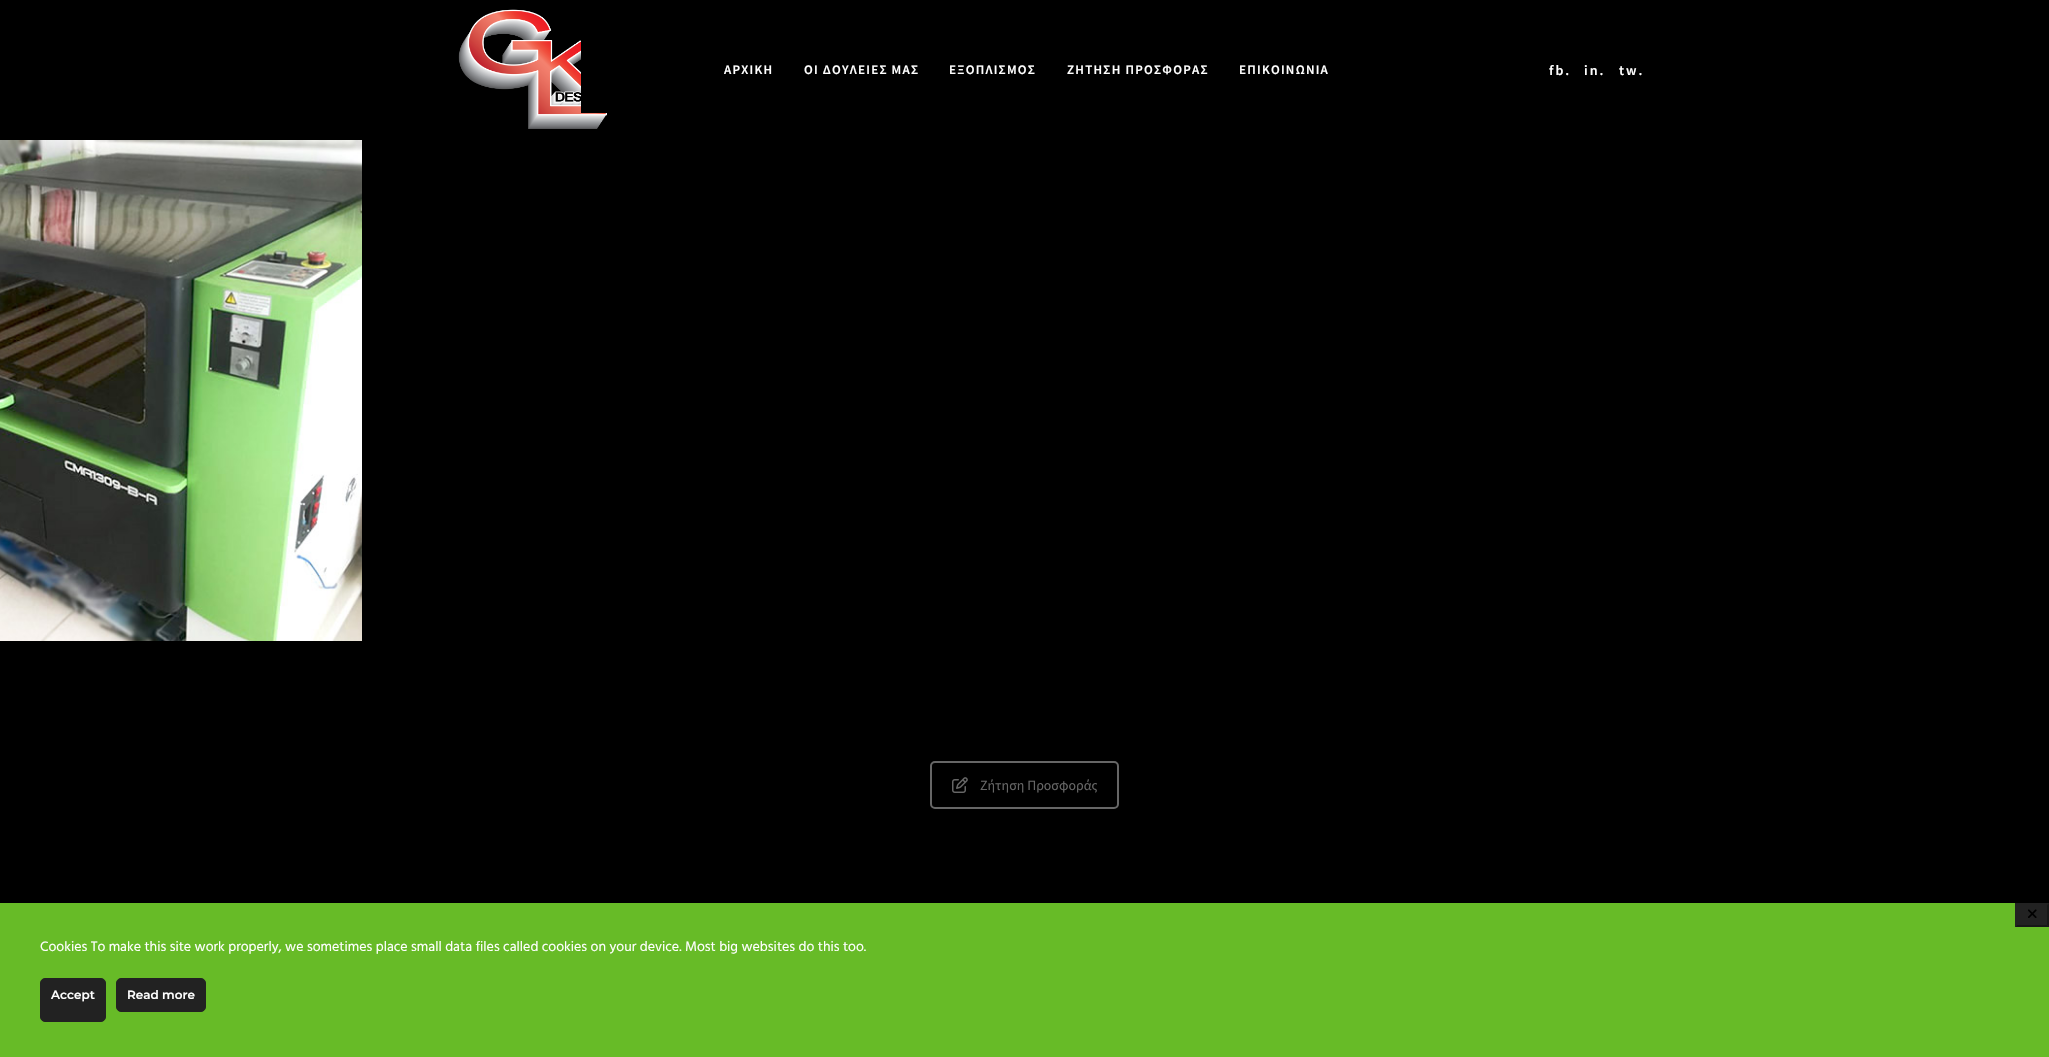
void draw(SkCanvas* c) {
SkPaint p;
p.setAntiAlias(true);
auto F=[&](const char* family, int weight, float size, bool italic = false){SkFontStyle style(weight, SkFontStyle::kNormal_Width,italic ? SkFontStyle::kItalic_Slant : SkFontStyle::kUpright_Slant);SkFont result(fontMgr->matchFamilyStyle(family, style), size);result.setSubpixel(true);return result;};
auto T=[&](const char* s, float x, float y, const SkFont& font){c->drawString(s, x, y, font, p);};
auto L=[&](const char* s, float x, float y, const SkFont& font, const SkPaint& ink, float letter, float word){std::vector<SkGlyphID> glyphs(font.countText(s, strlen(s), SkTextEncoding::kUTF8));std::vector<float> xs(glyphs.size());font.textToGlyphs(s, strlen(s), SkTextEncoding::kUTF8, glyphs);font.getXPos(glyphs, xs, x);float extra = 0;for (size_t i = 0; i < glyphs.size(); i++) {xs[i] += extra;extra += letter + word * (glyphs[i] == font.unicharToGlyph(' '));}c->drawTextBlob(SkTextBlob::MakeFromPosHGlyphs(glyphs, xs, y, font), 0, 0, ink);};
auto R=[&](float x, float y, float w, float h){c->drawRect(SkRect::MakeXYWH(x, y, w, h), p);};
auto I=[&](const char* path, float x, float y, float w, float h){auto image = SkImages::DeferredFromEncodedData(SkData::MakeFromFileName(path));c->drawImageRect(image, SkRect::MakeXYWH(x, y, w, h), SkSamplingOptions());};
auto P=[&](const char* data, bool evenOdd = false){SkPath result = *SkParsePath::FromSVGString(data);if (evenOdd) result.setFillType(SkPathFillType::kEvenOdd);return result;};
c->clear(0xff000000);
I("1.png",458,9,149,120);
p.setColor(0xff000000);
R(581,40,26,73);
auto f1 = F("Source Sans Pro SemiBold",600,13);
p.setColor(0xffffffff);
L("ΑΡΧΙΚΗ",724,74,f1,p,1.25,0);
L("ΟΙ ΔΟΥΛΕΙΕΣ ΜΑΣ",804,74,f1,p,1.25,0);
L("ΕΞΟΠΛΙΣΜΟΣ",949,74,f1,p,1.25,0);
L("ΖΗΤΗΣΗ ΠΡΟΣΦΟΡΑΣ",1067,74,f1,p,1.25,0);
L("ΕΠΙΚΟΙΝΩΝΙΑ",1239,74,f1,p,1.25,0);
auto f2 = F("Source Sans Pro SemiBold",600,14);
L("fb.",1549,75,f2,p,2,0);
L("in.",1584,75,f2,p,2,0);
L("tw.",1619,75,f2,p,2,0);
I("2.png",0,140,362,501);
p.setStroke(true);
p.setStrokeWidth(2);
p.setColor(0xff666666);
c->drawRoundRect(SkRect::MakeXYWH(931,762,187,46),4,4,p);
I("3.png",952,777,16,16);
auto f3 = F("Source Sans Pro",400,14);
p.setStroke(false);
T("Ζήτηση Προσφοράς",980,790,f3);
p.setColor(0xff67bb27);
R(0,903,2049,154);
p.setColor(0xff222222);
R(2015,903,34,24);
p.setColor(0xff171717);
c->drawPath(P("M2049 903v24l-2-2v-20z"),p);
c->drawPath(P("M2049 927h-34l2-2h30z"),p);
p.setColor(0xff222222);
c->drawPath(P("M2015 927v-24l2 2v20z"),p);
I("4.png",2028,909,9,9);
auto f4 = F("Hind",400,14);
p.setColor(0xffffffff);
T("Cookies To make this site work properly, we sometimes place small data files called cookies on your device. Most big websites do this too.",40,951,f4);
p.setColor(0xff222222);
c->drawRoundRect(SkRect::MakeXYWH(40.5,978.5,65,43),4.5,4.5,p);
p.setStroke(true);
p.setStrokeWidth(1);
c->drawRoundRect(SkRect::MakeXYWH(40.5,978.5,65,43),4.5,4.5,p);
auto f5 = F("Montserrat",600,12);
p.setStroke(false);
p.setColor(0xffffffff);
T("Accept",51,999,f5);
p.setColor(0xff222222);
c->drawRoundRect(SkRect::MakeXYWH(116.5,978.5,89,33),4.5,4.5,p);
p.setStroke(true);
c->drawRoundRect(SkRect::MakeXYWH(116.5,978.5,89,33),4.5,4.5,p);
p.setStroke(false);
p.setColor(0xffffffff);
T("Read more",127,999,f5);
}
